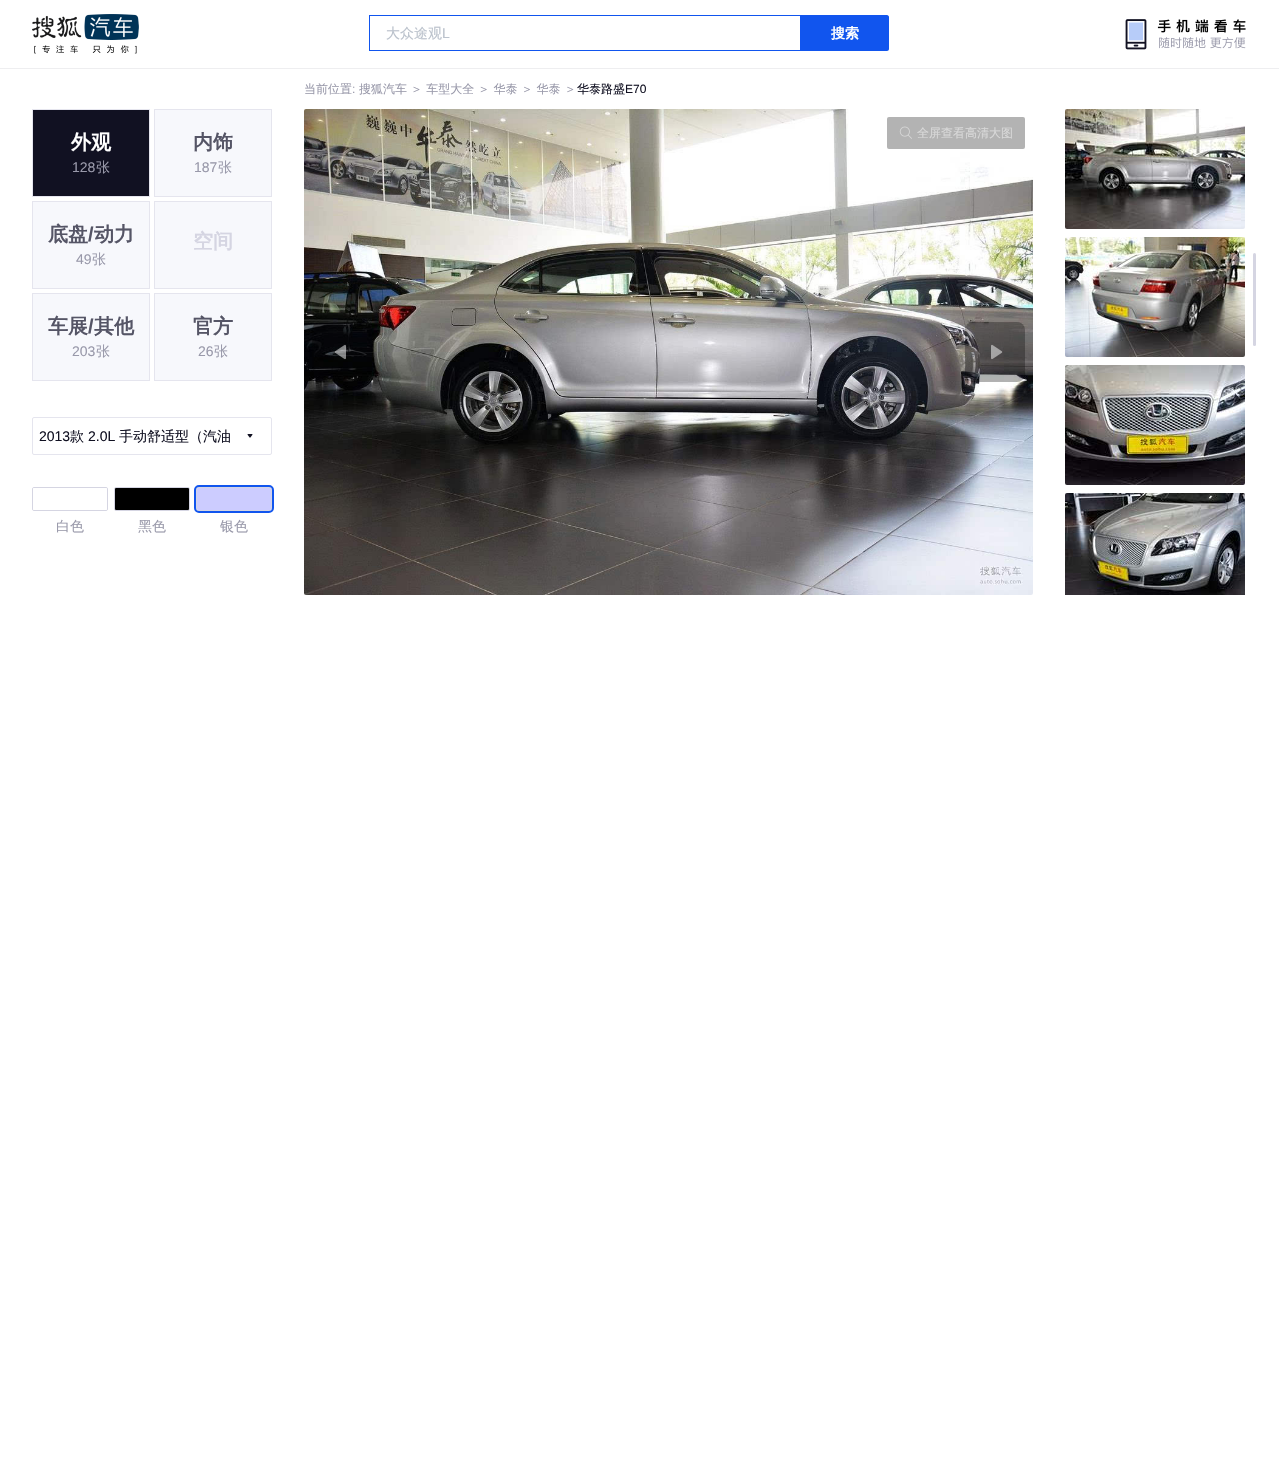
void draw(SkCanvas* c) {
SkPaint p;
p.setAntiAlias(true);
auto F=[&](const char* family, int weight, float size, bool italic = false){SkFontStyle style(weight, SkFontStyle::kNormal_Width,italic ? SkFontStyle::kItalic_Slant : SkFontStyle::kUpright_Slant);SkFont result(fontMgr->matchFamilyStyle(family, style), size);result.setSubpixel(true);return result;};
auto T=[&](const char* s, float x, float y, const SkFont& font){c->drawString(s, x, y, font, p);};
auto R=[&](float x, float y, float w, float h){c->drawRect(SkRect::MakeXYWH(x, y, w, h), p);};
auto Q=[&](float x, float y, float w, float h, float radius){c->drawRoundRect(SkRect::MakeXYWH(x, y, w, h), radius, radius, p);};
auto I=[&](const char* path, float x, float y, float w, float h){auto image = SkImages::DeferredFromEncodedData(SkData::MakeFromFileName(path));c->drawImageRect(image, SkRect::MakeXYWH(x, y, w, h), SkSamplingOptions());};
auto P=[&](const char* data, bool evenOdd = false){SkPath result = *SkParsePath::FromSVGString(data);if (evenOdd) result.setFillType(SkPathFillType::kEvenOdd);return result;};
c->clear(0xffffffff);
p.setColor(0xffeeeef0);
R(0,68,1279,1);
I("1.png",32,14,107,40);
p.setStroke(true);
p.setStrokeWidth(1);
p.setColor(0xff1155ee);
c->drawRect(SkRect::MakeXYWH(369.5,15.5,431,35),p);
auto f1 = F("WenQuanYi Zen Hei",500,14);
p.setStroke(false);
p.setColor(0xffbbc2cc);
T("大众途观",386,38,f1);
auto f2 = F("Liberation Sans",400,14);
T("L",442,38,f2);
p.setColor(0xff1155ee);
c->drawPath(P("M801 15h86c1 0 2 1 2 2v32c0 1-1 2-2 2h-86z"),p);
auto f3 = F("WenQuanYi Zen Hei",700,14);
p.setColor(0xffffffff);
T("搜索",831,38,f3);
I("2.png",1125,19,121,31);
auto f4 = F("WenQuanYi Zen Hei",500,12);
p.setColor(0xff9999aa);
T("当前位置",304,93,f4);
auto f5 = F("Liberation Sans",400,12);
T(":",352,93,f5);
T("搜狐汽车 ＞ 车型大全 ＞ 华泰 ＞ 华泰 ＞",359,93,f4);
p.setColor(0xff111122);
T("华泰路盛",577,93,f4);
T("E70",625,93,f5);
c->drawRect(SkRect::MakeXYWH(32.5,109.5,117,87),p);
p.setStroke(true);
p.setColor(0xffe5e5ee);
c->drawRect(SkRect::MakeXYWH(32.5,109.5,117,87),p);
auto f6 = F("WenQuanYi Zen Hei",700,20);
p.setStroke(false);
p.setColor(0xffffffff);
T("外观",71,149,f6);
p.setColor(0xff9999aa);
T("128",72,172,f2);
T("张",96,172,f1);
p.setColor(0xfff7f8fc);
c->drawRect(SkRect::MakeXYWH(154.5,109.5,117,87),p);
p.setStroke(true);
p.setColor(0xffe5e5ee);
c->drawRect(SkRect::MakeXYWH(154.5,109.5,117,87),p);
p.setStroke(false);
p.setColor(0xff555566);
T("内饰",193,149,f6);
p.setColor(0xff9999aa);
T("187",194,172,f2);
T("张",218,172,f1);
p.setColor(0xfff7f8fc);
c->drawRect(SkRect::MakeXYWH(32.5,201.5,117,87),p);
p.setStroke(true);
p.setColor(0xffe5e5ee);
c->drawRect(SkRect::MakeXYWH(32.5,201.5,117,87),p);
p.setStroke(false);
p.setColor(0xff555566);
T("底盘",48,241,f6);
auto f7 = F("Liberation Sans",700,20);
T("/",88,241,f7);
T("动力",94,241,f6);
p.setColor(0xff9999aa);
T("49",76,264,f2);
T("张",92,264,f1);
p.setColor(0xfff7f8fc);
c->drawRect(SkRect::MakeXYWH(154.5,201.5,117,87),p);
p.setStroke(true);
p.setColor(0xffe5e5ee);
c->drawRect(SkRect::MakeXYWH(154.5,201.5,117,87),p);
p.setStroke(false);
p.setColor(0xffd5d5e2);
T("空间",193,248,f6);
p.setColor(0xfff7f8fc);
c->drawRect(SkRect::MakeXYWH(32.5,293.5,117,87),p);
p.setStroke(true);
p.setColor(0xffe5e5ee);
c->drawRect(SkRect::MakeXYWH(32.5,293.5,117,87),p);
p.setStroke(false);
p.setColor(0xff555566);
T("车展",48,333,f6);
T("/",88,333,f7);
T("其他",94,333,f6);
p.setColor(0xff9999aa);
T("203",72,356,f2);
T("张",96,356,f1);
p.setColor(0xfff7f8fc);
c->drawRect(SkRect::MakeXYWH(154.5,293.5,117,87),p);
p.setStroke(true);
p.setColor(0xffe5e5ee);
c->drawRect(SkRect::MakeXYWH(154.5,293.5,117,87),p);
p.setStroke(false);
p.setColor(0xff555566);
T("官方",193,333,f6);
p.setColor(0xff9999aa);
T("26",198,356,f2);
T("张",214,356,f1);
p.setStroke(true);
p.setColor(0xffe5e5ee);
c->drawRoundRect(SkRect::MakeXYWH(32.5,417.5,239,37),1.5,1.5,p);
p.setStroke(false);
p.setColor(0xff111122);
T("2013",39,441,f2);
T("款",70,441,f1);
T("2.0L",88,441,f2);
T("手动舒适型（汽油",119,441,f1);
I("3.png",247,434,6,4);
p.setStroke(true);
p.setColor(0xffd5d5e2);
c->drawRoundRect(SkRect::MakeXYWH(32.5,487.5,75,23),1.5,1.5,p);
p.setStroke(false);
p.setColor(0xffffffff);
Q(33,488,74,22,1);
p.setColor(0xff9999aa);
T("白色",56,531,f1);
p.setStroke(true);
p.setColor(0xffd5d5e2);
c->drawRoundRect(SkRect::MakeXYWH(114.5,487.5,75,23),1.5,1.5,p);
p.setStroke(false);
p.setColor(0xff000000);
Q(115,488,74,22,1);
p.setColor(0xff9999aa);
T("黑色",138,531,f1);
p.setStroke(true);
p.setColor(0xffd5d5e2);
c->drawRoundRect(SkRect::MakeXYWH(196.5,487.5,75,23),1.5,1.5,p);
p.setStroke(false);
p.setColor(0xffccccff);
Q(197,488,74,22,1);
p.setStroke(true);
p.setStrokeWidth(2);
p.setColor(0xff1155ee);
c->drawRoundRect(SkRect::MakeXYWH(195,486,78,26),4,4,p);
p.setStroke(false);
p.setColor(0xff9999aa);
T("银色",220,531,f1);
I("4.png",304,109,729,486);
p.setColor(0xffb3b3b3);
Q(887,117,138,32,2);
I("5.png",899,126,13,13);
p.setColor(0xffd9d9d9);
T("全屏查看高清大图",917,137,f4);
p.setColor(0x4d000000);
Q(312,322,60,60,8);
I("6.png",334,344,12,16);
Q(965,322,60,60,8);
I("7.png",991,344,12,16);
I("8.png",1065,109,180,120);
I("9.png",1065,237,180,120);
I("10.png",1065,365,180,120);
I("11.png",1065,493,180,102);
p.setColor(0xffd5d5e2);
Q(1253,253,3,93,1.5);
}
